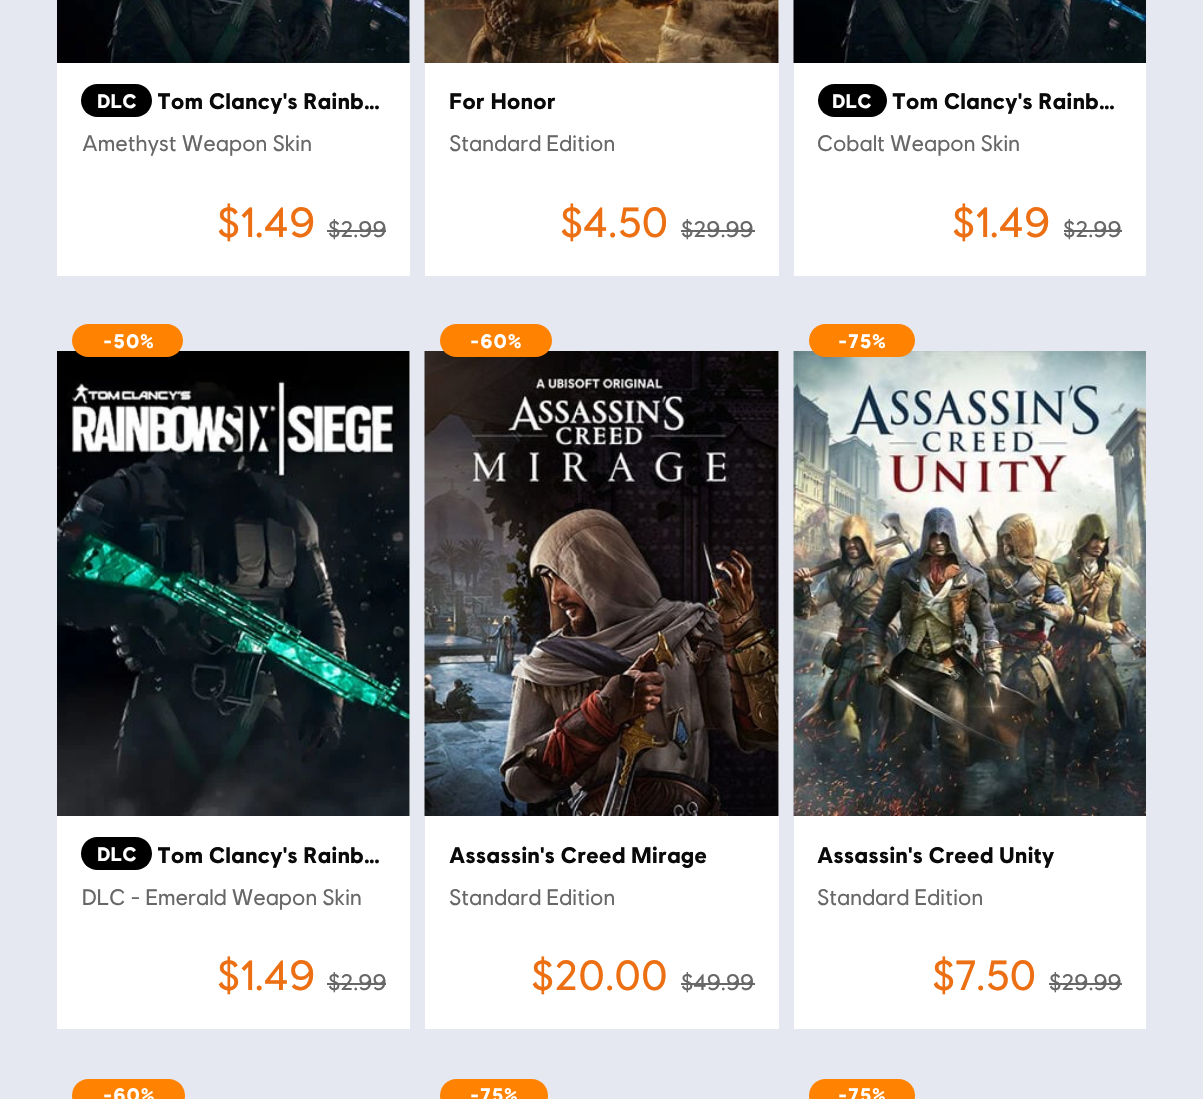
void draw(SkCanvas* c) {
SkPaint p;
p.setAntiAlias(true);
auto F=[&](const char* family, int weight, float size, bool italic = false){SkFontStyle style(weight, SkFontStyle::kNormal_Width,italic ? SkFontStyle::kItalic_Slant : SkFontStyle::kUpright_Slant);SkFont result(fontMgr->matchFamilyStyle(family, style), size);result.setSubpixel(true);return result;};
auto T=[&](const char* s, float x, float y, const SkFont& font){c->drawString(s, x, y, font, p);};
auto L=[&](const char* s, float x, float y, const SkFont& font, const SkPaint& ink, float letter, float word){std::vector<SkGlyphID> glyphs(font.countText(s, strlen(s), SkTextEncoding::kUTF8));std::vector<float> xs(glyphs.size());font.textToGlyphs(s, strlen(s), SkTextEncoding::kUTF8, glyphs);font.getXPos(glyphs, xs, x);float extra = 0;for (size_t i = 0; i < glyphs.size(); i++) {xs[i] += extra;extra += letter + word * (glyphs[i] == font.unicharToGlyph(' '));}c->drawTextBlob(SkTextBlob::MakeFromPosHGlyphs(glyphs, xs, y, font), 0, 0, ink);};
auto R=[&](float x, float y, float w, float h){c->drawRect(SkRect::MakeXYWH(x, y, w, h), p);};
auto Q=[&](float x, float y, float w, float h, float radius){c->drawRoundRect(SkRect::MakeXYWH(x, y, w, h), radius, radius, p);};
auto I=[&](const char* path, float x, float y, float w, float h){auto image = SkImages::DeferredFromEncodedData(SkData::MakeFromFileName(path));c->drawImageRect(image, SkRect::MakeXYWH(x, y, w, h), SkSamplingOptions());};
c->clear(0xffe5e8f0);
p.setColor(0xffffffff);
R(409,0,1,63);
I("1.png",57,0,353,63);
R(57,63,353,213);
p.setColor(0xff000000);
Q(81,84,71,33,16.5);
auto f1 = F("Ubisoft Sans",700,19.5);
p.setColor(0xffffffff);
T("DLC",97,108,f1);
c->save();
c->clipRect(SkRect::MakeXYWH(158,83,228,36));
auto f2 = F("Ubisoft Sans",700,22.5);
p.setColor(0xff0a0a0a);
T("Tom Clancy's Rainb…",157,109,f2);
c->restore();
auto f3 = F("Ubisoft Sans",400,22.5);
p.setColor(0xff676767);
T("Amethyst Weapon Skin",82,151,f3);
auto f4 = F("Ubisoft Sans",400,42);
p.setColor(0xffec7013);
T("$1.49",217,237,f4);
p.setColor(0xff676767);
T("$2.99",328,237,f3);
R(327,230,59,2);
p.setColor(0xffffffff);
R(778,0,1,63);
I("2.png",424,0,355,63);
R(425,63,354,213);
p.setColor(0xff0a0a0a);
T("For Honor",449,109,f2);
p.setColor(0xff676767);
T("Standard Edition",449,151,f3);
p.setColor(0xffec7013);
T("$4.50",560,237,f4);
p.setColor(0xff676767);
T("$29.99",681,237,f3);
R(681,230,74,2);
I("3.png",793,0,353,63);
p.setColor(0xffffffff);
R(794,63,352,213);
p.setColor(0xff000000);
Q(818,84,69,33,16.5);
p.setColor(0xffffffff);
T("DLC",832,108,f1);
p.setColor(0xff0a0a0a);
T("Tom Clancy's Rainb…",892,109,f2);
c->save();
c->clipRect(SkRect::MakeXYWH(818,119,304,70));
p.setColor(0xff676767);
T("Cobalt Weapon Skin",817,151,f3);
c->restore();
p.setColor(0xffec7013);
T("$1.49",952,237,f4);
p.setColor(0xff676767);
T("$2.99",1063,237,f3);
R(1064,230,58,2);
p.setColor(0xffffffff);
R(57,816,353,213);
R(409,351,1,465);
I("4.png",57,351,353,465);
p.setColor(0xffff8300);
Q(72,324,111,33,16.5);
p.setColor(0xffffffff);
L("-50%",103,348,f1,p,1,0);
p.setColor(0xff000000);
Q(81,837,71,33,16.5);
p.setColor(0xffffffff);
T("DLC",97,861,f1);
c->save();
c->clipRect(SkRect::MakeXYWH(158,836,228,36));
p.setColor(0xff0a0a0a);
T("Tom Clancy's Rainb…",157,863,f2);
c->restore();
p.setColor(0xff676767);
T("DLC - Emerald Weapon Skin",82,905,f3);
p.setColor(0xffec7013);
T("$1.49",217,990,f4);
p.setColor(0xff676767);
T("$2.99",328,990,f3);
R(327,983,59,2);
p.setColor(0xffffffff);
R(425,816,354,213);
R(778,351,1,465);
I("5.png",424,351,355,465);
p.setColor(0xffff8300);
Q(440,324,112,33,16.5);
p.setColor(0xffffffff);
L("-60%",470,348,f1,p,1,0);
p.setColor(0xff0a0a0a);
T("Assassin's Creed Mirage",449,863,f2);
p.setColor(0xff676767);
T("Standard Edition",449,905,f3);
p.setColor(0xffec7013);
T("$20.00",531,990,f4);
p.setColor(0xff676767);
T("$49.99",681,990,f3);
R(681,983,74,2);
p.setColor(0xffffffff);
R(794,816,352,213);
I("6.png",793,351,353,465);
p.setColor(0xffff8300);
Q(809,324,106,33,16.5);
p.setColor(0xffffffff);
L("-75%",838,348,f1,p,1,0);
p.setColor(0xff0a0a0a);
T("Assassin's Creed Unity",817,863,f2);
p.setColor(0xff676767);
T("Standard Edition",817,905,f3);
p.setColor(0xffec7013);
T("$7.50",932,990,f4);
p.setColor(0xff676767);
T("$29.99",1049,990,f3);
R(1049,983,73,2);
p.setColor(0xffff8300);
Q(72,1079,113,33,16.5);
p.setColor(0xffffffff);
L("-60%",103,1102,f1,p,1,0);
p.setColor(0xffff8300);
Q(440,1079,108,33,16.5);
p.setColor(0xffffffff);
L("-75%",470,1102,f1,p,1,0);
p.setColor(0xffff8300);
Q(809,1079,106,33,16.5);
p.setColor(0xffffffff);
L("-75%",838,1102,f1,p,1,0);
}
